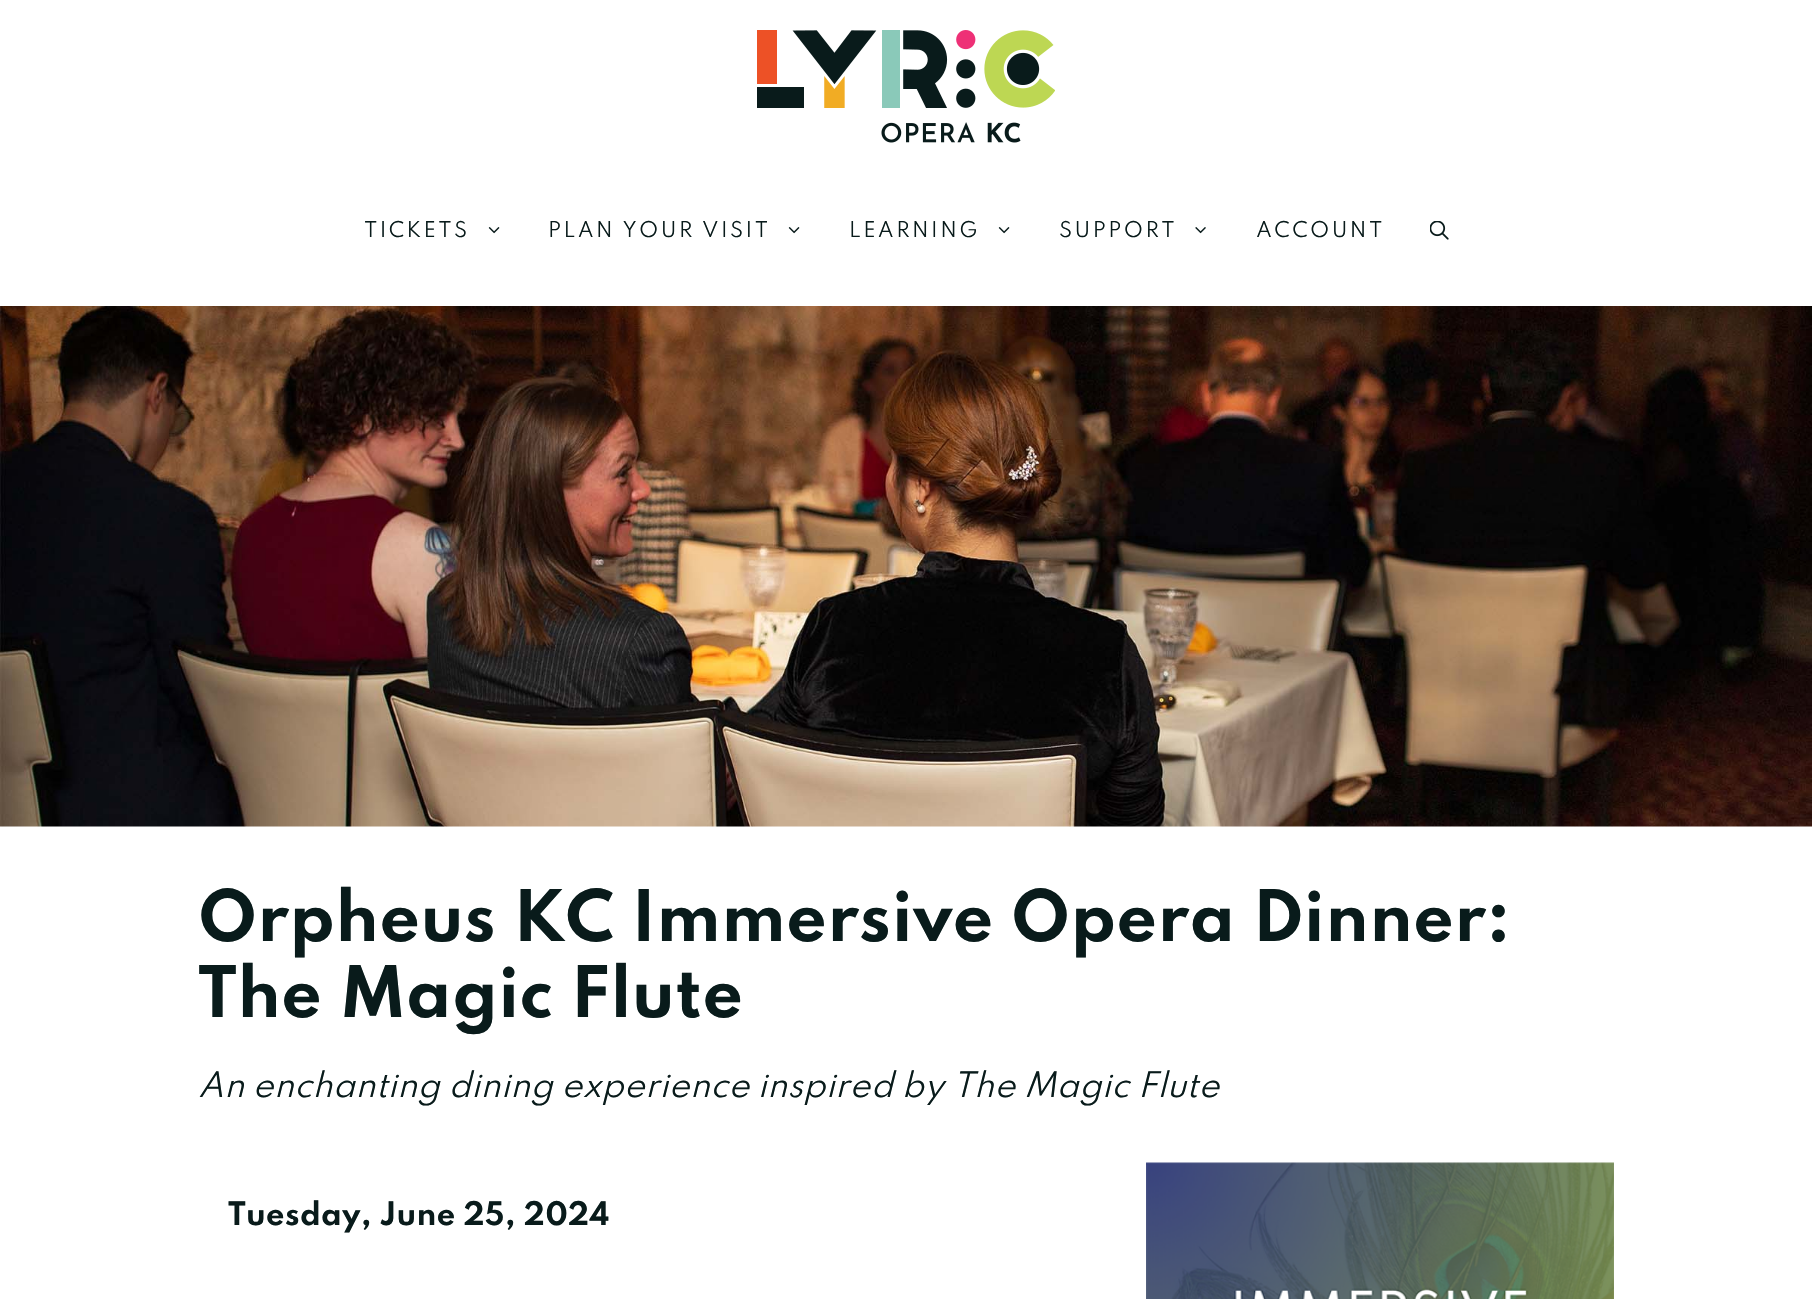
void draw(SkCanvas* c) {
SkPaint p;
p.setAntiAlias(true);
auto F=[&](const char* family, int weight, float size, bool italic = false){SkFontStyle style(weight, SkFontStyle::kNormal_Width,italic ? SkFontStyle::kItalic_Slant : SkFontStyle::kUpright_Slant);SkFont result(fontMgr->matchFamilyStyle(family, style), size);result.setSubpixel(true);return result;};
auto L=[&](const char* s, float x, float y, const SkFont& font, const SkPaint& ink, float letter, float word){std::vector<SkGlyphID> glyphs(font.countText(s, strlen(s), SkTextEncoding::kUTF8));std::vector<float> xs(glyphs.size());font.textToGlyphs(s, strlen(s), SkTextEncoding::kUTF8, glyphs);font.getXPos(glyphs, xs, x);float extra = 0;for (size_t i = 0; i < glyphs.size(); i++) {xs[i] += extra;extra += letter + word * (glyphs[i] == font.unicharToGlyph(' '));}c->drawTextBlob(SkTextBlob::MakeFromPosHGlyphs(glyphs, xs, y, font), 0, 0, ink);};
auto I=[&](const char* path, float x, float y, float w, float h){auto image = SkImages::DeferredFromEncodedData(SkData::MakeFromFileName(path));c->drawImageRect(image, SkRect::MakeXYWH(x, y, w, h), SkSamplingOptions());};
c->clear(0xffffffff);
I("1.png",757,30,298,113);
auto f1 = F("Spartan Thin",400,19.25);
p.setColor(0xff091b1b);
L("TICKETS",364,237,f1,p,2.4,0);
I("2.png",488,227,12,7);
L("PLAN YOUR VISIT",548,237,f1,p,2.4,0);
I("2.png",788,227,12,7);
L("LEARNING",849,237,f1,p,2.4,0);
I("2.png",998,227,12,7);
L("SUPPORT",1059,237,f1,p,2.4,0);
I("3.png",1195,227,11,7);
L("ACCOUNT",1256,237,f1,p,2.4,0);
I("4.png",1430,221,19,19);
I("5.png",0,306,1812,521);
auto f2 = F("Spartan Thin",700,63);
L("Orpheus KC Immersive Opera Dinner:",198,941,f2,p,.3,0);
L("The Magic Flute",198,1017,f2,p,.3,0);
auto f3 = F("Spartan Thin",400,31.2,true);
L("An enchanting dining experience inspired by The Magic Flute",198,1097,f3,p,.3,0);
auto f4 = F("Spartan Thin",700,28.75);
L("Tuesday, June 25, 2024",228,1225,f4,p,.3,0);
I("6.png",1146,1162,468,137);
}
